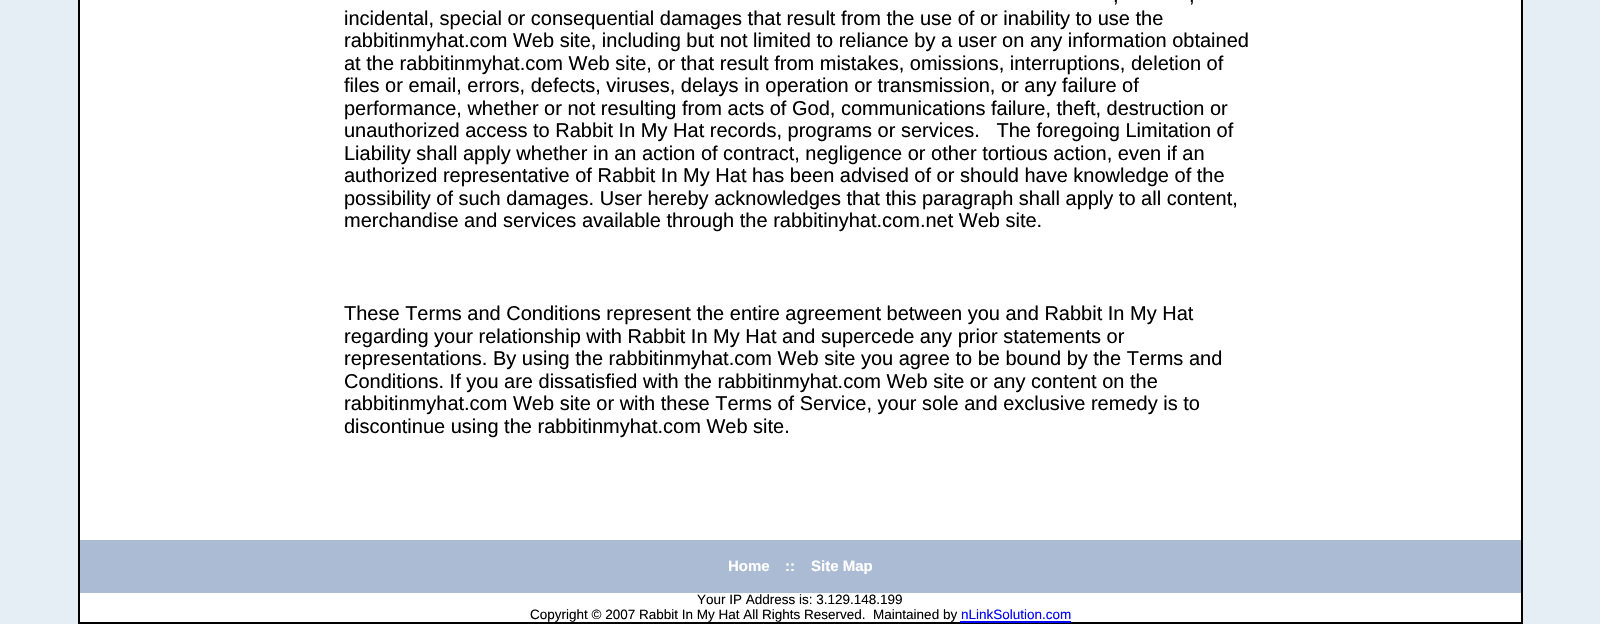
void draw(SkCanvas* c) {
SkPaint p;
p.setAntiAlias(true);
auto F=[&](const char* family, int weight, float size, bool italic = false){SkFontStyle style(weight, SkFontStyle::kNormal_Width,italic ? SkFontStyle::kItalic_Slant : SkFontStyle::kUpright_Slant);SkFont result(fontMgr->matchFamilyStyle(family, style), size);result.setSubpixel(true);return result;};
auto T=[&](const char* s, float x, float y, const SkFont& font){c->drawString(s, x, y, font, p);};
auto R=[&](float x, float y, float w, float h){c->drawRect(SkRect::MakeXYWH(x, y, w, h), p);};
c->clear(0xffe5edf5);
p.setColor(0xffffffff);
c->drawRect(SkRect::MakeXYWH(79,-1,1443,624),p);
p.setStroke(true);
p.setStrokeWidth(2);
p.setColor(0xff000000);
c->drawRect(SkRect::MakeXYWH(79,-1,1443,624),p);
auto f1 = F("Liberation Sans",400,20);
p.setStroke(false);
T(",",1113,2,f1);
T(",",1189,2,f1);
T("incidental, special or consequential damages that result from the use of or inability to use the",344,25,f1);
T("rabbitinmyhat.com Web site, including but not limited to reliance by a user on any information obtained",344,47,f1);
T("at the rabbitinmyhat.com Web site, or that result from mistakes, omissions, interruptions, deletion of",344,70,f1);
T("files or email, errors, defects, viruses, delays in operation or transmission, or any failure of",344,92,f1);
T("performance, whether or not resulting from acts of God, communications failure, theft, destruction or",344,115,f1);
T("unauthorized access to Rabbit In My Hat records, programs or services.   The foregoing Limitation of",344,137,f1);
T("Liability shall apply whether in an action of contract, negligence or other tortious action, even if an",344,160,f1);
T("authorized representative of Rabbit In My Hat has been advised of or should have knowledge of the",344,182,f1);
T("possibility of such damages. User hereby acknowledges that this paragraph shall apply to all content,",344,205,f1);
T("merchandise and services available through the rabbitinyhat.com.net Web site.",344,227,f1);
T("These Terms and Conditions represent the entire agreement between you and Rabbit In My Hat",344,320,f1);
T("regarding your relationship with Rabbit In My Hat and supercede any prior statements or",344,343,f1);
T("representations. By using the rabbitinmyhat.com Web site you agree to be bound by the Terms and",344,365,f1);
T("Conditions. If you are dissatisfied with the rabbitinmyhat.com Web site or any content on the",344,388,f1);
T("rabbitinmyhat.com Web site or with these Terms of Service, your sole and exclusive remedy is to",344,410,f1);
T("discontinue using the rabbitinmyhat.com Web site.",344,433,f1);
p.setColor(0xffabbbd3);
R(80,540,1441,53);
auto f2 = F("Liberation Sans",700,15);
p.setColor(0xffffffff);
T("Home",728,571,f2);
T("::",785,571,f2);
T("Site Map",811,571,f2);
auto f3 = F("Liberation Sans",400,13.5);
p.setColor(0xff000000);
T("Your IP Address is: 3.129.148.199",697,604,f3);
T("Copyright © 2007 Rabbit In My Hat All Rights Reserved.  Maintained by",530,619,f3);
p.setColor(0xff0000ff);
T("nLinkSolution.com",961,619,f3);
R(960,621,111,2);
}
